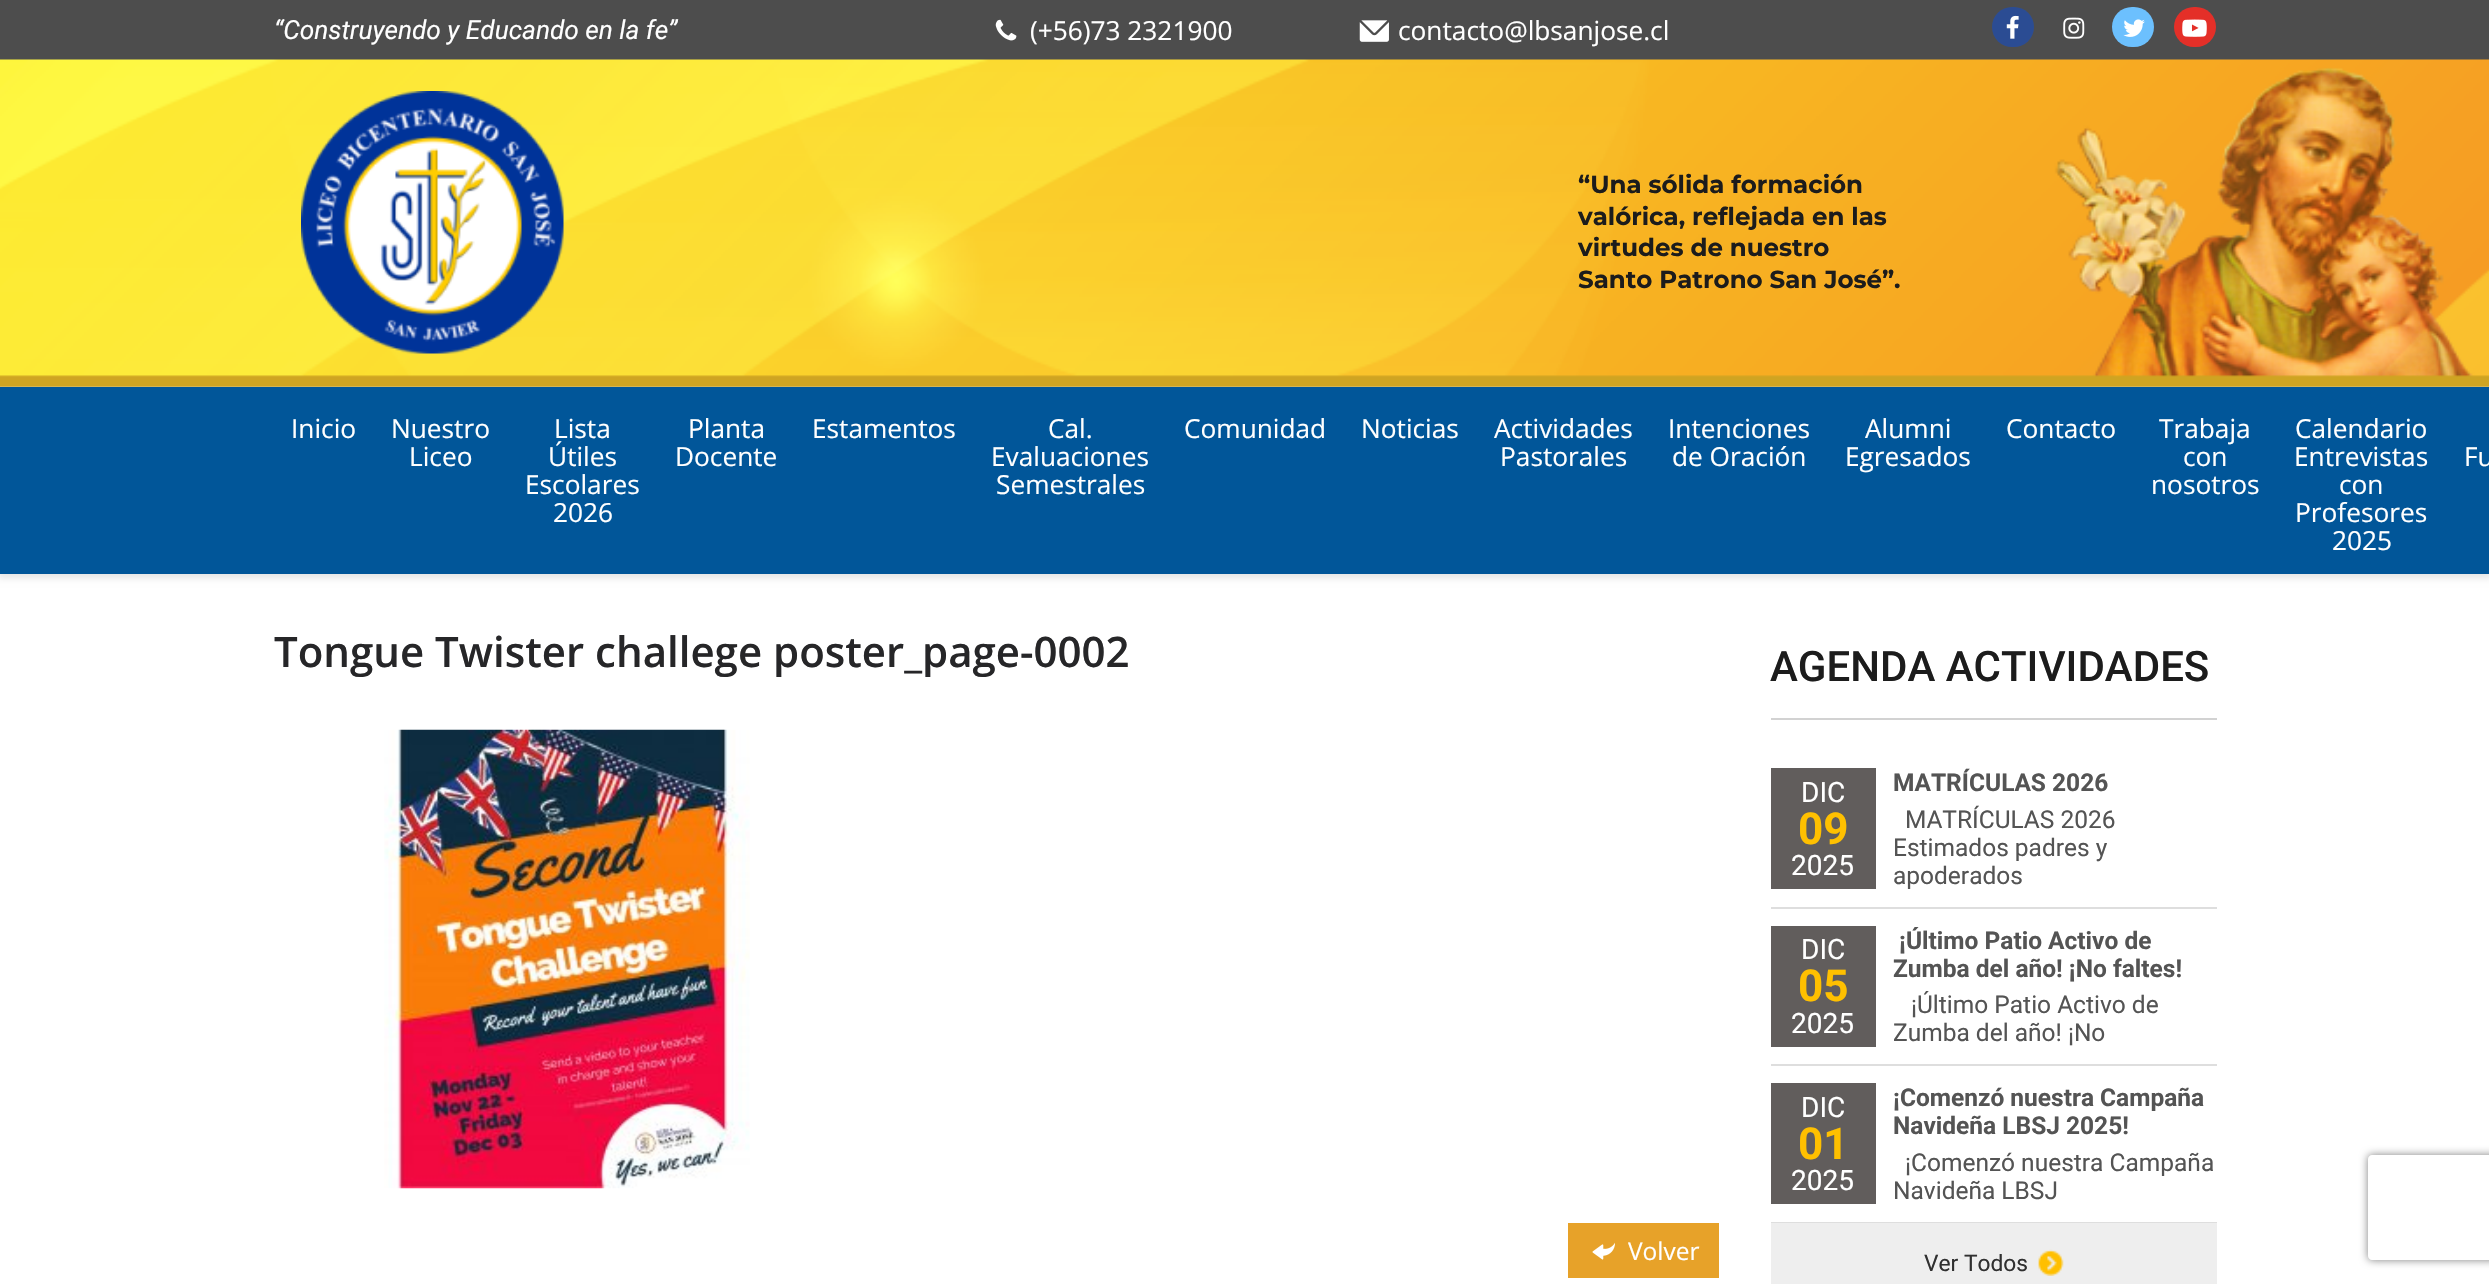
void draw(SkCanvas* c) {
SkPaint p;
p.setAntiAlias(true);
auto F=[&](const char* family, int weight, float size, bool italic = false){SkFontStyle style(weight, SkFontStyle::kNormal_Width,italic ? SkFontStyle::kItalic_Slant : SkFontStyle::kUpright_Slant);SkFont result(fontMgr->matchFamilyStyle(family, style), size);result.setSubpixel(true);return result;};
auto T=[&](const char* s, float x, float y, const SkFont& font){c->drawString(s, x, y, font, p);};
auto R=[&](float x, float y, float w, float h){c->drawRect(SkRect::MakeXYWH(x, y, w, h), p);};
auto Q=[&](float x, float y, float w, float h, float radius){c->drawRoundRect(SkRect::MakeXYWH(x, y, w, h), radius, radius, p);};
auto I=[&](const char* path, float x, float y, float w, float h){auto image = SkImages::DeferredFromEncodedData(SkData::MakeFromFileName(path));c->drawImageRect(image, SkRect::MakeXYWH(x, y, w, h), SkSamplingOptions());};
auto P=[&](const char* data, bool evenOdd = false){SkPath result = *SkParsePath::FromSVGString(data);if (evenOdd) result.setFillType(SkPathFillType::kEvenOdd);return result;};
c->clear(0xffffffff);
p.setColor(0x1a000000);
p.setMaskFilter(SkMaskFilter::MakeBlur(kNormal_SkBlurStyle, 3.5));
c->drawRect(SkRect::MakeXYWH(-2,0,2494,578),p);
p.setMaskFilter(nullptr);
p.setColor(0xff4d4d4d);
R(0,0,2489,60);
auto f1 = F("Roboto",400,26.25,true);
p.setColor(0xffffffff);
T("“Construyendo y Educando en la fe”",274,39,f1);
I("1.png",995,19,22,22);
auto f2 = F("Open Sans",400,26.25);
T("(+56)73 2321900",1030,40,f2);
I("2.png",1359,20,30,22);
T("contacto@lbsanjose.cl",1398,40,f2);
p.setColor(0xff2b4c93);
Q(1992,7,42,40,20);
I("3.png",2006,15,13,24);
I("4.png",2063,17,22,22);
p.setColor(0xff6cc0fe);
Q(2112,7,42,40,20);
I("5.png",2123,19,22,18);
p.setColor(0xffe42f28);
Q(2174,7,42,40,20);
I("6.png",2182,19,25,18);
I("7.png",0,59,2489,328);
I("8.png",301,91,263,263);
auto f3 = F("Montserrat",700,24.5);
p.setColor(0xff1c1c1c);
T("“Una sólida formación",1578,193,f3);
T("valórica, reflejada en las",1578,225,f3);
T("virtudes de nuestro",1578,256,f3);
T("Santo Patrono San José”.",1578,288,f3);
p.setColor(0xff015699);
R(0,387,2489,187);
p.setColor(0xffffffff);
T("Inicio",291,438,f2);
T("Nuestro",391,438,f2);
T("Liceo",409,466,f2);
T("Lista",554,438,f2);
T("Útiles",548,466,f2);
T("Escolares",525,494,f2);
T("2026",553,522,f2);
T("Planta",688,438,f2);
T("Docente",675,466,f2);
T("Estamentos",812,438,f2);
T("Cal.",1048,438,f2);
T("Evaluaciones",991,466,f2);
T("Semestrales",996,494,f2);
T("Comunidad",1184,438,f2);
T("Noticias",1361,438,f2);
T("Actividades",1494,438,f2);
T("Pastorales",1500,466,f2);
T("Intenciones",1668,438,f2);
T("de Oración",1672,466,f2);
T("Alumni",1865,438,f2);
T("Egresados",1845,466,f2);
T("Contacto",2006,438,f2);
T("Trabaja",2159,438,f2);
T("con",2183,466,f2);
T("nosotros",2151,494,f2);
T("Calendario",2295,438,f2);
T("Entrevistas",2294,466,f2);
T("con",2339,494,f2);
T("Profesores",2295,522,f2);
T("2025",2332,550,f2);
T("Fu",2464,466,f2);
auto f4 = F("Open Sans",600,42);
p.setColor(0xff262628);
T("Tongue Twister challege poster_page-0002",274,667,f4);
I("9.png",384,729,366,460);
p.setColor(0xffe7a229);
R(1568,1223,151,55);
I("10.png",1592,1242,23,18);
auto f5 = F("Open Sans",400,24.5);
p.setColor(0xffffffff);
T("Volver",1628,1260,f5);
p.setColor(0xffd2d2d2);
R(1771,718,446,2);
auto f6 = F("Roboto",500,42);
p.setColor(0xff1c1c1c);
T("AGENDA ACTIVIDADES",1770,681,f6);
p.setColor(0xffdedede);
R(1771,907,446,2);
p.setColor(0xff615d5c);
R(1771,768,105,121);
auto f7 = F("Roboto",400,28);
p.setColor(0xffffffff);
T("DIC",1801,802,f7);
auto f8 = F("Roboto",700,44);
p.setColor(0xffffc000);
T("09",1798,844,f8);
p.setColor(0xffffffff);
T("2025",1791,875,f7);
auto f9 = F("Roboto",700,24.5);
p.setColor(0xff545454);
T("MATRÍCULAS 2026",1893,791,f9);
auto f10 = F("Roboto",400,24.5);
T("MATRÍCULAS 2026",1905,828,f10);
T("Estimados padres y",1893,856,f10);
T("apoderados",1893,884,f10);
p.setColor(0xffdedede);
R(1771,1064,446,2);
p.setColor(0xff615d5c);
R(1771,926,105,121);
p.setColor(0xffffffff);
T("DIC",1801,959,f7);
p.setColor(0xffffc000);
T("05",1798,1001,f8);
p.setColor(0xffffffff);
T("2025",1791,1033,f7);
p.setColor(0xff545454);
T("¡Último Patio Activo de",1899,949,f9);
T("Zumba del año! ¡No faltes!",1893,977,f9);
T("¡Último Patio Activo de",1911,1013,f10);
T("Zumba del año! ¡No",1893,1041,f10);
p.setColor(0xffdedede);
R(1771,1222,446,1);
p.setColor(0xff615d5c);
R(1771,1083,105,121);
p.setColor(0xffffffff);
T("DIC",1801,1117,f7);
p.setColor(0xffffc000);
T("01",1798,1159,f8);
p.setColor(0xffffffff);
T("2025",1791,1190,f7);
p.setColor(0xff545454);
T("¡Comenzó nuestra Campaña",1893,1106,f9);
T("Navideña LBSJ 2025!",1893,1134,f9);
T("¡Comenzó nuestra Campaña",1905,1171,f10);
T("Navideña LBSJ",1893,1199,f10);
p.setColor(0xffeeeeee);
R(1771,1223,446,61);
auto f11 = F("Roboto",400,22.75);
p.setColor(0xff303030);
T("Ver Todos",1924,1271,f11);
I("11.png",2038,1249,26,27);
c->save();
c->clipPath(P("M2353 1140h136v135h-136zm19 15h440c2 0 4 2 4 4v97c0 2-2 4-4 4h-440c-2 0-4-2-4-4v-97c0-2 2-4 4-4z",true),true);
p.setColor(0xff808080);
p.setMaskFilter(SkMaskFilter::MakeBlur(kNormal_SkBlurStyle, 4.5));
c->drawRoundRect(SkRect::MakeXYWH(2368,1155,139,105),4,4,p);
p.setMaskFilter(nullptr);
c->restore();
}
